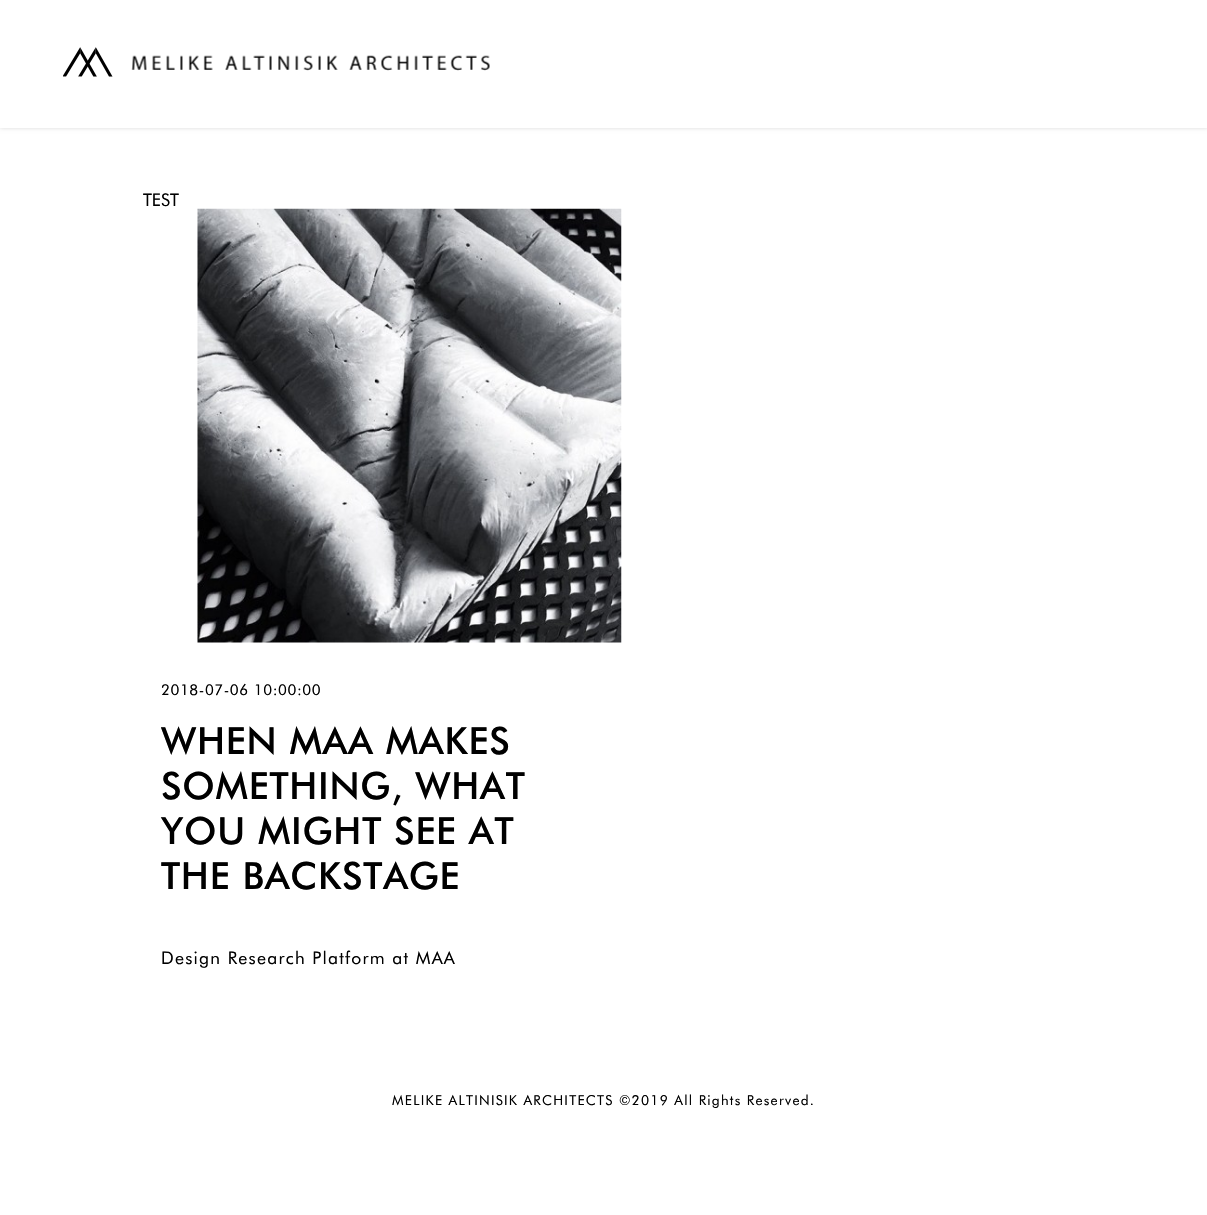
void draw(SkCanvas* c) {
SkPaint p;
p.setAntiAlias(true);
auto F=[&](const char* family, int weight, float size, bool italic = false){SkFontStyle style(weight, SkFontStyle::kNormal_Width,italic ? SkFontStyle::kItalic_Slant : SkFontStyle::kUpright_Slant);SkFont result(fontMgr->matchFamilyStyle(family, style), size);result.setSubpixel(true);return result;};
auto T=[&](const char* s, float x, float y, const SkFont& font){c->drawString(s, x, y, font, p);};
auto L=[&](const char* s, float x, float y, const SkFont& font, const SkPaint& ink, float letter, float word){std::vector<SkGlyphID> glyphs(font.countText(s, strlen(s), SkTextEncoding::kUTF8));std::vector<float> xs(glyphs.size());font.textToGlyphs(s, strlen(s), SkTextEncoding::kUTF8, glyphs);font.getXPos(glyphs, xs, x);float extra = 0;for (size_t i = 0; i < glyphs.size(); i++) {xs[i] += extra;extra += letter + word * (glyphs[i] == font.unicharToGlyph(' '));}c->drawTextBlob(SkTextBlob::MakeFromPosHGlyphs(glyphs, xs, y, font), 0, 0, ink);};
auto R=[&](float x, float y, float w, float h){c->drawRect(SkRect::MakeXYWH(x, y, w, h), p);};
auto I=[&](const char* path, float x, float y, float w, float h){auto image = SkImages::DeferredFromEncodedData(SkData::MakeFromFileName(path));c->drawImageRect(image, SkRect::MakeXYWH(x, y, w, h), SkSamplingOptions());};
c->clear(0xffffffff);
p.setColor(0x26000000);
p.setMaskFilter(SkMaskFilter::MakeBlur(kNormal_SkBlurStyle, 2));
c->drawRect(SkRect::MakeXYWH(0,0,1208,128),p);
p.setMaskFilter(nullptr);
p.setColor(0xffffffff);
R(0,0,1207,128);
I("1.png",63,47,50,30);
I("2.png",131,55,359,16);
auto f1 = F("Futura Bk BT",400,17.5);
p.setColor(0xff000000);
T("TEST",143,206,f1);
I("3.png",197,208,425,435);
auto f2 = F("Futura Bk BT",400,15);
L("2018-07-06 10:00:00",161,695,f2,p,.6,0);
auto f3 = F("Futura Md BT",500,37.5);
L("WHEN MAA MAKES",161,754,f3,p,.75,0);
L("SOMETHING, WHAT",161,799,f3,p,.75,0);
L("YOU MIGHT SEE AT",161,844,f3,p,.75,0);
L("THE BACKSTAGE",161,889,f3,p,.75,0);
L("Design Research Platform at MAA",161,964,f1,p,1.25,0);
auto f4 = F("Futura Bk BT",400,13.75);
L("MELIKE ALTINISIK ARCHITECTS ©2019 All Rights Reserved.",392,1105,f4,p,1.25,0);
}
